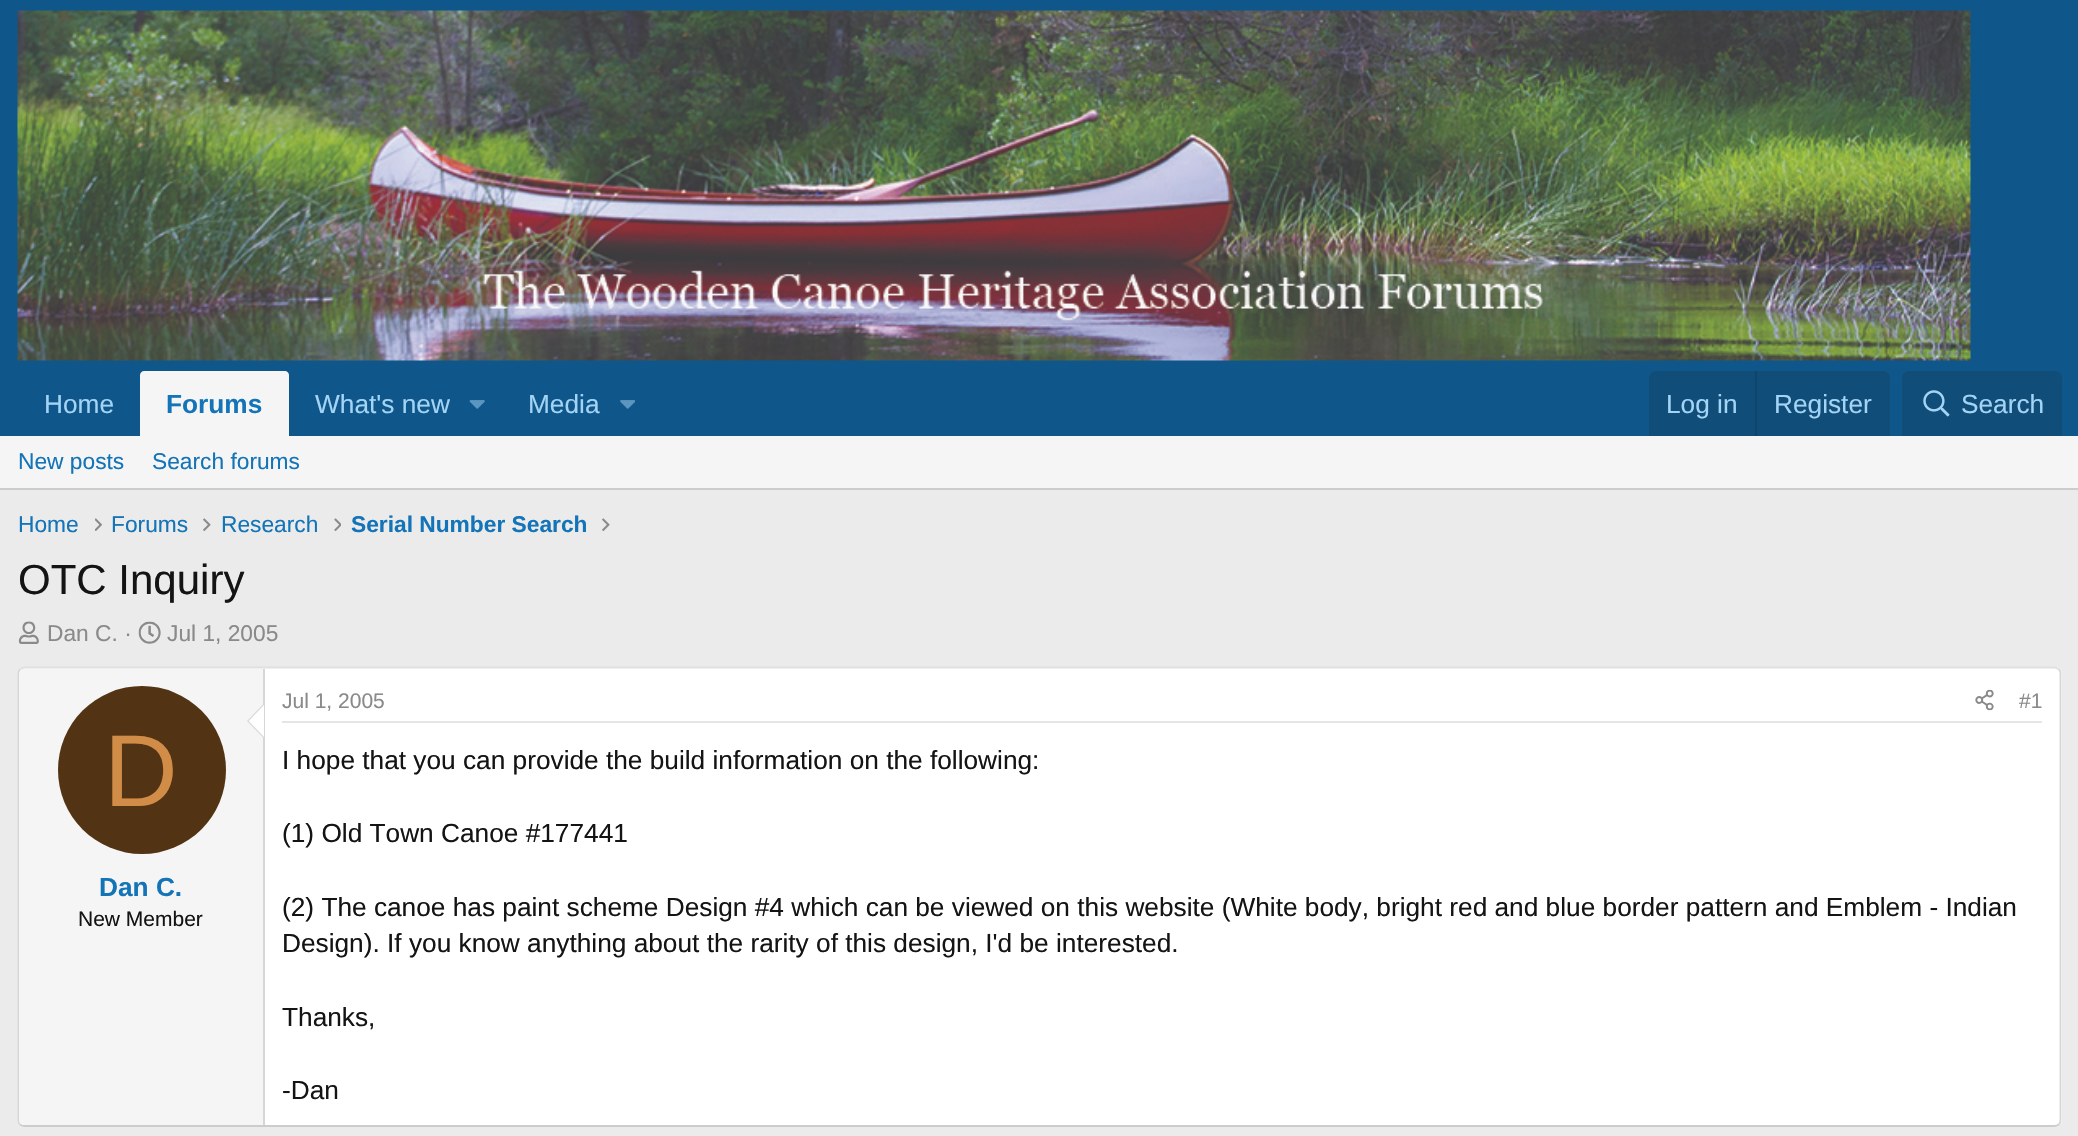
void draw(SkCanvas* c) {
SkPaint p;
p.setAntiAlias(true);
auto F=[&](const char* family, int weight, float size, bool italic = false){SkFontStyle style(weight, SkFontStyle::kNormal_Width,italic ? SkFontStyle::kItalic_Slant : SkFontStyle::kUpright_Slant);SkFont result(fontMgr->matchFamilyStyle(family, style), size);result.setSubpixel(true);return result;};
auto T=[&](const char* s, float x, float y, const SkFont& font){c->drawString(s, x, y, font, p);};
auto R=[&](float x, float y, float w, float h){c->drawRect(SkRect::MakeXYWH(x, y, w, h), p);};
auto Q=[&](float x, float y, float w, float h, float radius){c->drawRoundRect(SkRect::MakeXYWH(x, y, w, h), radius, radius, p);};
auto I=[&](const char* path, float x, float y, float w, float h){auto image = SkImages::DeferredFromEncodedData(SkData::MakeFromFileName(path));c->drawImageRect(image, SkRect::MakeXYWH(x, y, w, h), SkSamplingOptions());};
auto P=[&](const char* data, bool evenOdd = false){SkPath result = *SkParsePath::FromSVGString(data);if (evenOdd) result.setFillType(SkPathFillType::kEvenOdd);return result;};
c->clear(0xffebebeb);
p.setColor(0xff0f578a);
R(0,0,2078,436);
I("1.png",17,10,1954,351);
auto f1 = F("Liberation Sans",400,26.25);
p.setColor(0xffa3d4f5);
T("Home",44,413,f1);
p.setColor(0xfff5f5f5);
c->drawPath(P("M144 371h141c2 0 4 2 4 4v61h-149v-61c0-2 2-4 4-4z"),p);
auto f2 = F("Liberation Sans",700,26.25);
p.setColor(0xff1474b8);
T("Forums",166,413,f2);
p.setColor(0xffa3d4f5);
T("What's new",315,413,f1);
I("2.png",469,400,16,9);
T("Media",528,413,f1);
I("3.png",620,400,15,9);
p.setColor(0xff104d78);
c->drawPath(P("M1656 371h227c4 0 7 3 7 7v58h-241v-58c0-4 3-7 7-7z"),p);
p.setColor(0xffa3d4f5);
T("Log in",1666,413,f1);
p.setColor(0xff114469);
R(1755,371,2,65);
p.setColor(0xffa3d4f5);
T("Register",1774,413,f1);
p.setColor(0xff104d78);
c->drawPath(P("M1909 371h146c4 0 7 3 7 7v58h-160v-58c0-4 3-7 7-7z"),p);
I("4.png",1923,390,27,27);
p.setColor(0xffa3d4f5);
T("Search",1961,413,f1);
p.setColor(0xfff5f5f5);
R(0,436,2078,52);
p.setColor(0xffcccccc);
R(0,488,2078,2);
auto f3 = F("Liberation Sans",400,22.75);
p.setColor(0xff1474b8);
T("New posts",18,469,f3);
T("Search forums",152,469,f3);
T("Home",18,532,f3);
I("5.png",95,518,7,13);
T("Forums",111,532,f3);
I("6.png",203,518,8,13);
T("Research",221,532,f3);
I("7.png",334,518,7,13);
auto f4 = F("Liberation Sans",700,22.75);
T("Serial Number Search",351,532,f4);
I("6.png",602,518,8,13);
auto f5 = F("Liberation Sans",400,42);
p.setColor(0xff141414);
T("OTC Inquiry",18,594,f5);
I("8.png",18,621,21,23);
p.setColor(0xff8a8a8a);
T("Dan C. ·",47,641,f3);
I("9.png",138,621,23,23);
T("Jul 1, 2005",167,641,f3);
p.setColor(0xffffffff);
Q(18,667,2044,460,7);
p.setStroke(true);
p.setStrokeWidth(1.8);
p.setColor(0xffe0e0e0);
c->drawPath(P("M20 669.5c1.5-1 3-2 4.5-2h2030c1.5 0 3 1 4.5 2"),p);
p.setColor(0xffd6d6d6);
c->drawPath(P("M2059 669.5c1 1 1.5 2.5 1.5 4.5v446c0 1.5-.5 3-1.5 4.5"),p);
p.setColor(0xffcccccc);
c->drawPath(P("M2059 1124.5c-1.5 1-3 1.5-4.5 1.5h-2030c-1.5 0-3-.5-4.5-1.5"),p);
p.setColor(0xffd6d6d6);
c->drawPath(P("M20 1124.5c-1-1.5-1.5-3-1.5-4.5v-446c0-2 .5-3.5 1.5-4.5"),p);
p.setStroke(false);
p.setColor(0xfff5f5f5);
c->drawPath(P("M24 669h240v456h-240c-3 0-5-2-5-5v-446c0-3 2-5 5-5z"),p);
p.setColor(0xffd6d6d6);
R(263,669,2,456);
c->drawPath(P("M264 703.5v35l-17-17.5z"),p);
p.setColor(0xffffffff);
c->drawPath(P("M264 705v32l-15.5-16z"),p);
p.setColor(0xff523314);
c->drawCircle(142,770,84,p);
auto f6 = F("Liberation Sans",400,102);
p.setColor(0xffd18c47);
T("D",104,806,f6);
p.setColor(0xff1474b8);
T("Dan C.",99,896,f2);
auto f7 = F("Liberation Sans",400,21);
p.setColor(0xff141414);
T("New Member",78,926,f7);
p.setColor(0xffe5e5e5);
R(282,721,1760,2);
p.setColor(0xff8a8a8a);
T("Jul 1, 2005",282,708,f7);
I("10.png",1975,689,19,22);
T("#1",2019,708,f7);
p.setColor(0xff141414);
T("I hope that you can provide the build information on the following:",282,769,f1);
T("(1) Old Town Canoe #177441",282,842,f1);
T("(2) The canoe has paint scheme Design #4 which can be viewed on this website (White body, bright red and blue border pattern and Emblem - Indian",282,916,f1);
T("Design). If you know anything about the rarity of this design, I'd be interested.",282,952,f1);
T("Thanks,",282,1026,f1);
T("-Dan",282,1099,f1);
}
